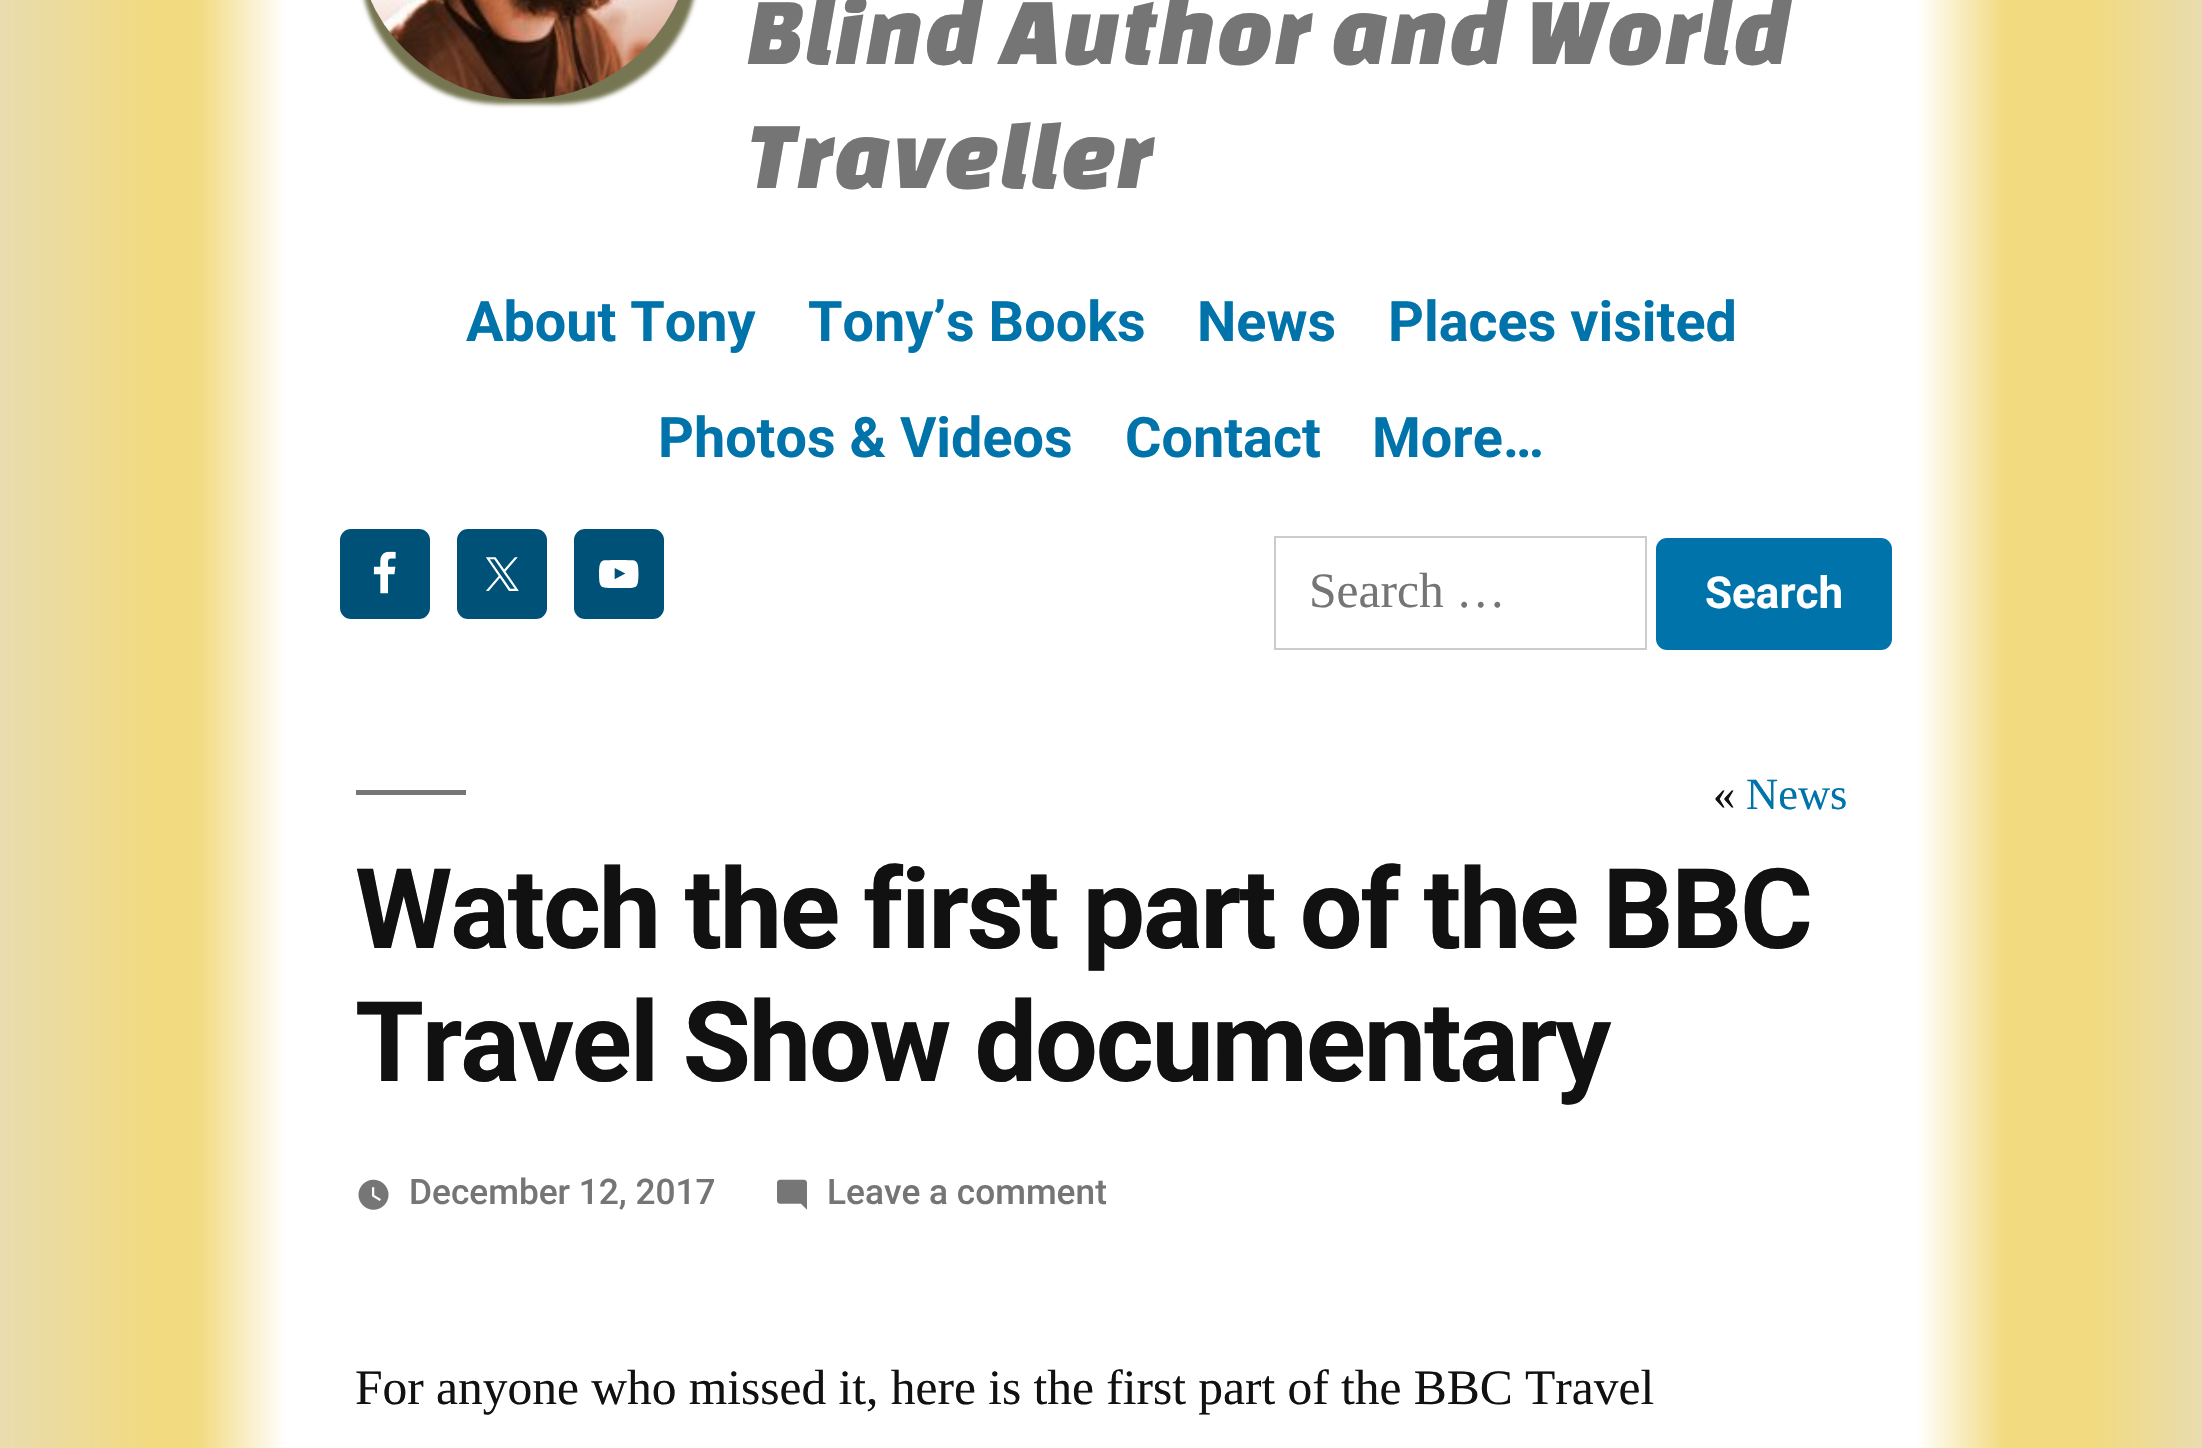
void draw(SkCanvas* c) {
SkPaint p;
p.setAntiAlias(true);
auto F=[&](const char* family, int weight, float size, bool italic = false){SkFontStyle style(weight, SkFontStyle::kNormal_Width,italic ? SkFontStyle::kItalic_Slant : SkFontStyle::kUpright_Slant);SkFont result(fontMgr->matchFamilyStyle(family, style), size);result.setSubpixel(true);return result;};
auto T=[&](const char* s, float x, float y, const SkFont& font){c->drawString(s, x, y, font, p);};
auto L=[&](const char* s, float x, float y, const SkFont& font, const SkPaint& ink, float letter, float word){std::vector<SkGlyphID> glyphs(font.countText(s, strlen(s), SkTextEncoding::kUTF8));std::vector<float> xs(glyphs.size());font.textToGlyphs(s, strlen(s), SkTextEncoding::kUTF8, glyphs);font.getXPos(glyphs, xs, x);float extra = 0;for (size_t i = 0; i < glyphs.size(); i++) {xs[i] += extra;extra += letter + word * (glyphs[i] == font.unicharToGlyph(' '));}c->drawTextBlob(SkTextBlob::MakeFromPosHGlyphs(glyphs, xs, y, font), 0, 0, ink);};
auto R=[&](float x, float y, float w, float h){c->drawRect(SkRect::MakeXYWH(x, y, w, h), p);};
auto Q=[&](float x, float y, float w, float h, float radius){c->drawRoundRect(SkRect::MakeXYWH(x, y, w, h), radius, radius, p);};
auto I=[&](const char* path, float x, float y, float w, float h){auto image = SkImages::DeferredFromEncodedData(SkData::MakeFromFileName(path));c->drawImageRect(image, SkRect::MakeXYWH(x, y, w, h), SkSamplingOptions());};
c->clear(0xffffffff);
{
const SkColor colors[] = {0xffe9dcaf,0xfff2da80,0xfff2da80,0xffffffff,0xffffffff,0xfff2da80,0xfff2da80,0xffe9dcaf};
const float stops[] = {0,.07,.09,.13,.87,.91,.95,1};
const SkPoint ends[] = {{0,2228}, {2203,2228}};
p.setShader(SkGradientShader::MakeLinear(ends, colors, stops, 8, SkTileMode::kClamp));
p.setAlpha(255);
}
R(0,0,2202,1448);
p.setShader(nullptr);
p.setColor(0xff767652);
p.setMaskFilter(SkMaskFilter::MakeBlur(kNormal_SkBlurStyle, 2));
c->drawRoundRect(SkRect::MakeXYWH(360,-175,338,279),169,169,p);
p.setMaskFilter(nullptr);
I("1.png",371,0,307,100);
auto f1 = F("Changa One",400,99,true);
p.setColor(0xff757575);
T("Blind Author and World",747,64,f1);
T("Traveller",747,188,f1);
auto f2 = F("Roboto",700,55.75);
p.setColor(0xff0073aa);
T("About Tony",466,341,f2);
T("Tony’s Books",808,341,f2);
T("News",1197,341,f2);
T("Places visited",1388,341,f2);
T("Photos & Videos",658,457,f2);
T("Contact",1125,457,f2);
T("More…",1372,457,f2);
p.setColor(0xff005177);
Q(340,529,90,90,11);
I("2.png",373,551,23,43);
Q(457,529,90,90,11);
I("3.png",486,557,33,34);
Q(574,529,90,90,11);
I("4.png",599,560,40,28);
p.setStroke(true);
p.setStrokeWidth(2);
p.setColor(0xffcccccc);
c->drawRect(SkRect::MakeXYWH(1275,537,371,112),p);
auto f3 = F("Liberation Serif",400,49.5);
p.setStroke(false);
p.setColor(0xff757575);
T("Search …",1309,607,f3);
p.setColor(0xff0073aa);
Q(1656,538,236,112,11);
auto f4 = F("Roboto",700,44);
p.setColor(0xffffffff);
T("Search",1705,608,f4);
auto f5 = F("Liberation Serif",400,44.5);
p.setColor(0xff111111);
T("«",1713,809,f5);
p.setColor(0xff0073aa);
T("News",1746,809,f5);
p.setColor(0xff767676);
R(356,790,110,5);
auto f6 = F("Roboto",700,111.4);
p.setColor(0xff111111);
L("Watch the first part of the BBC",355,948,f6,p,-2.25,0);
L("Travel Show documentary",355,1081,f6,p,-2.25,0);
I("5.png",358,1179,31,31);
auto f7 = F("Roboto",500,35.25);
p.setColor(0xff757575);
T("December 12, 2017",409,1204,f7);
I("6.png",777,1179,30,31);
T("Leave a comment",827,1204,f7);
p.setColor(0xff111111);
L("For anyone who missed it, here is the first part of the BBC Travel",355,1404,f3,p,0,-.1);
}
